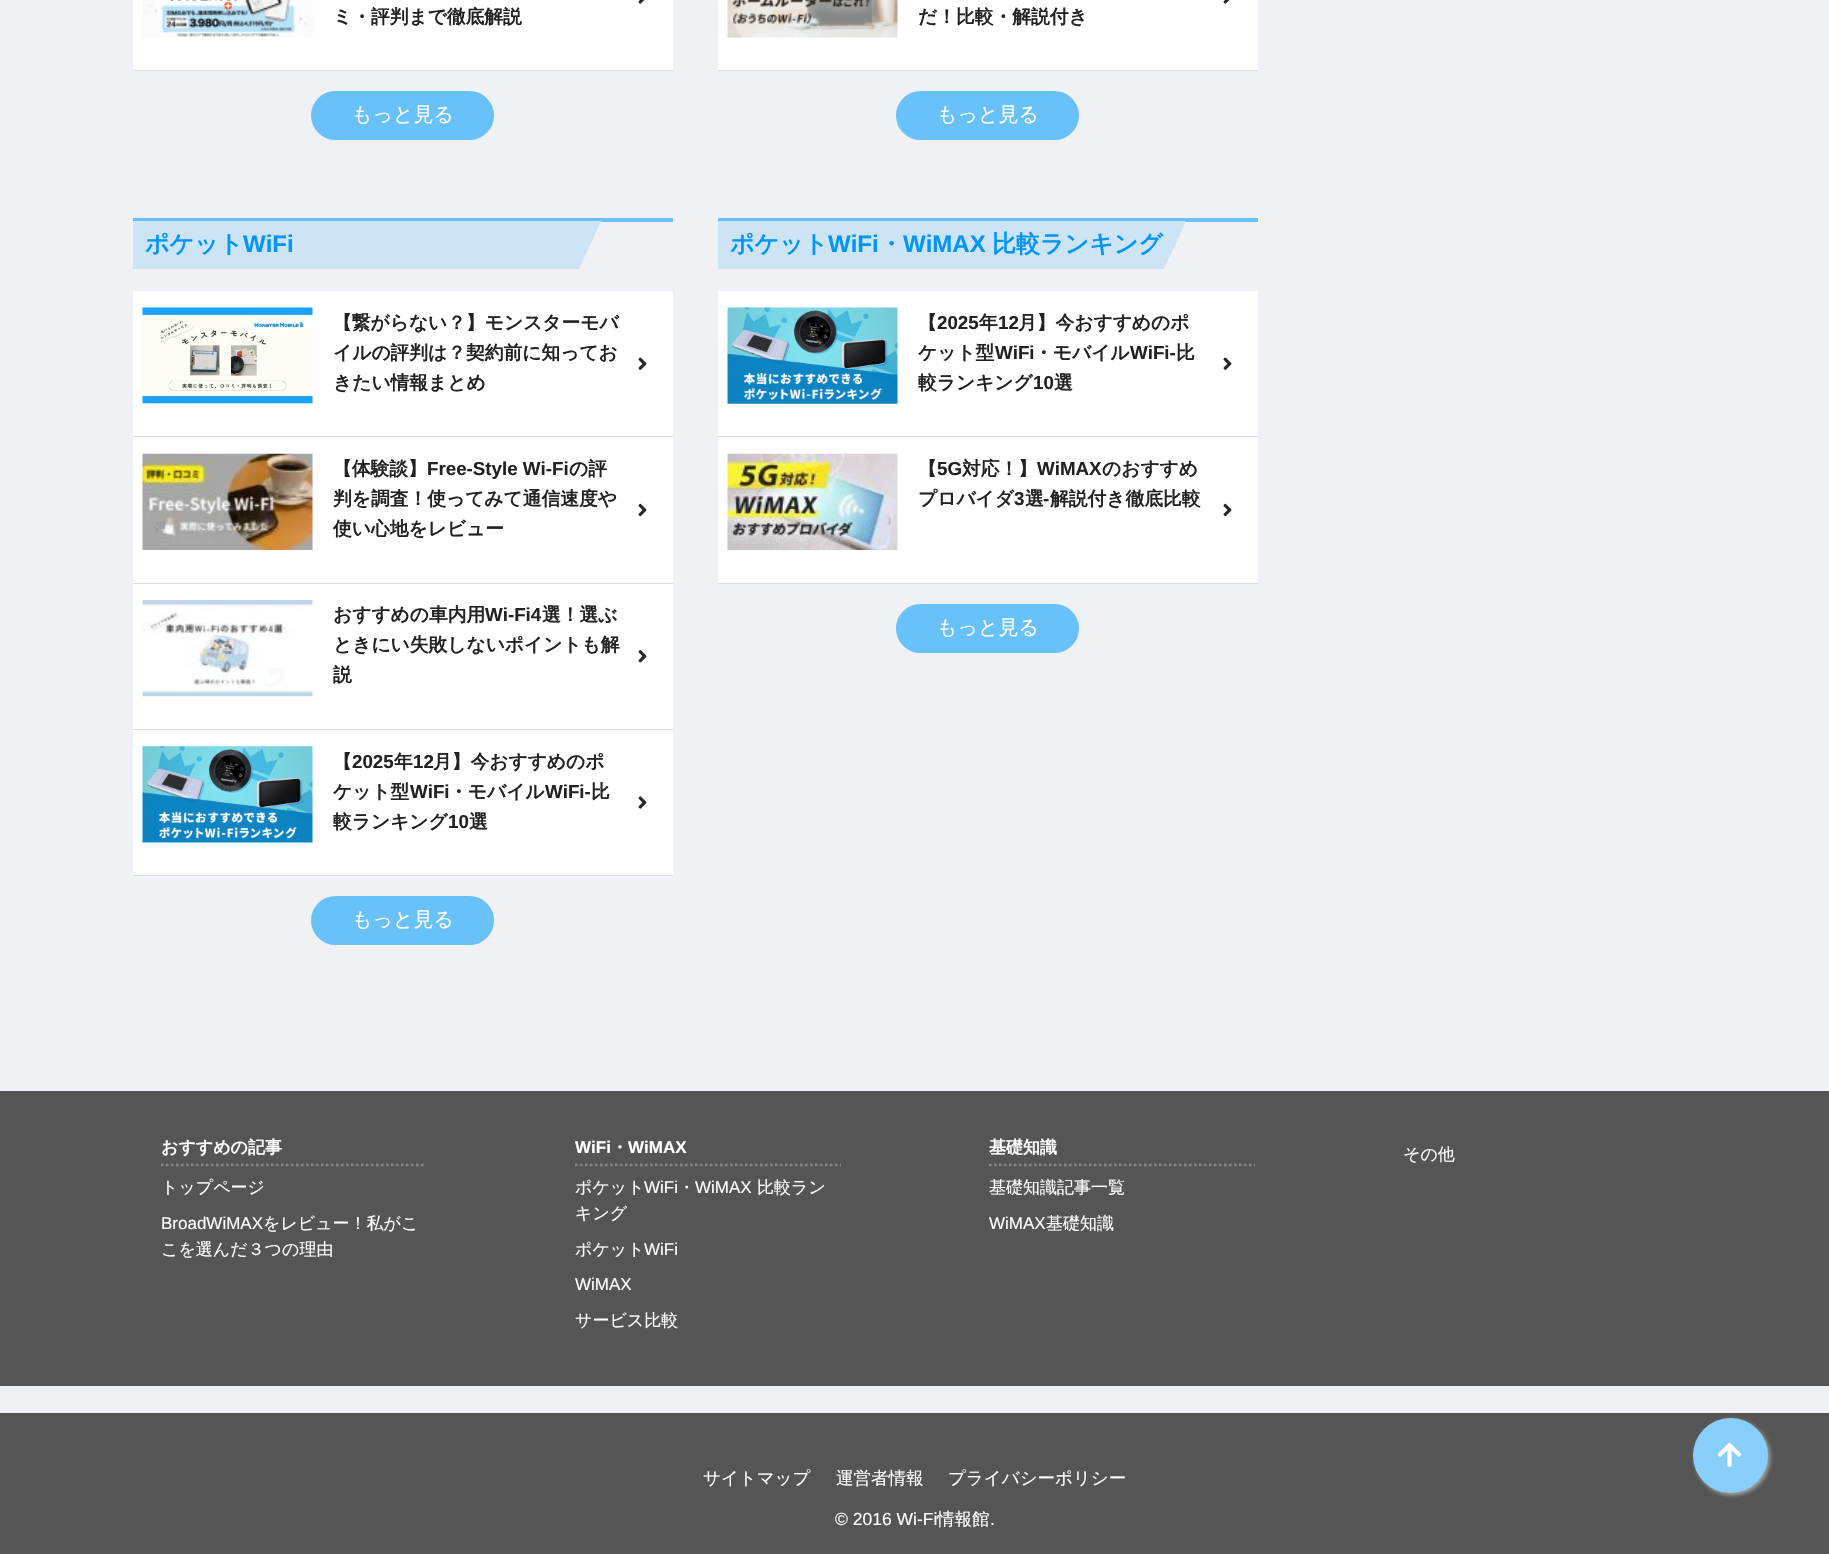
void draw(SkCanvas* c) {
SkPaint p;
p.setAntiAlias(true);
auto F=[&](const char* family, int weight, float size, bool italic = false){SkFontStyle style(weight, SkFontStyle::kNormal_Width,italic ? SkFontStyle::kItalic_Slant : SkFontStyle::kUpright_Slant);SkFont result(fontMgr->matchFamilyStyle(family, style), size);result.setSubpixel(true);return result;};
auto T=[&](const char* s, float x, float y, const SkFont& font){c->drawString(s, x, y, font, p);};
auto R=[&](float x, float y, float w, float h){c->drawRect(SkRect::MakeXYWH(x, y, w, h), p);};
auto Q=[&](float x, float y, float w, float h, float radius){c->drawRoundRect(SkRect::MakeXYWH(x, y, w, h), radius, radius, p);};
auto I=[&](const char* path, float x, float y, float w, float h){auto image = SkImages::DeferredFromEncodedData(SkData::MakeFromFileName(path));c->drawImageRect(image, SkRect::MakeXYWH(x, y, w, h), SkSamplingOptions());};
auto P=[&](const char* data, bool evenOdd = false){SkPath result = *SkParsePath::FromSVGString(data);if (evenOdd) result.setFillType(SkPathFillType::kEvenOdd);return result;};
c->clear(0xffeff1f5);
p.setColor(0xffffffff);
R(133,0,540,70);
p.setColor(0xffdddddd);
R(133,70,540,1);
I("1.png",638,0,7,4);
I("2.png",142,0,171,38);
auto f1 = F("WenQuanYi Zen Hei",700,18.75);
p.setColor(0xff222222);
T("ミ・評判まで徹底解説",333,23,f1);
p.setColor(0xff69c1fa);
Q(311,91,183,49,24.5);
auto f2 = F("WenQuanYi Zen Hei",500,20);
p.setColor(0xffffffff);
T("もっと見る",352,121,f2);
R(718,0,540,70);
p.setColor(0xffdddddd);
R(718,70,540,1);
I("1.png",1223,0,7,4);
I("3.png",727,0,171,38);
p.setColor(0xff222222);
T("だ！比較・解説付き",918,23,f1);
p.setColor(0xff69c1fa);
Q(896,91,183,49,24.5);
p.setColor(0xffffffff);
T("もっと見る",937,121,f2);
p.setColor(0xff69c1fa);
R(133,218,540,4);
c->save();
c->clipRect(SkRect::MakeXYWH(133,221,540,48));
p.setColor(0xffcce4f5);
c->drawPath(P("M-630-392l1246 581l-121 261l-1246-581z"),p);
c->restore();
auto f3 = F("WenQuanYi Zen Hei",700,24);
p.setColor(0xff0195fb);
T("ポケット",145,252,f3);
auto f4 = F("Liberation Sans",700,24);
T("WiFi",243,252,f4);
p.setColor(0xffffffff);
R(133,291,540,292);
p.setColor(0xffdddddd);
R(133,436,540,1);
I("4.png",142,307,171,97);
p.setColor(0xff222222);
T("【繋がらない？】モンスターモバ",333,329,f1);
T("イルの評判は？契約前に知ってお",333,359,f1);
T("きたい情報まとめ",333,389,f1);
I("5.png",638,357,9,13);
p.setColor(0xffdddddd);
R(133,583,540,1);
I("6.png",142,453,171,97);
p.setColor(0xff222222);
T("【体験談】",333,475,f1);
auto f5 = F("Liberation Sans",700,18.75);
T("Free-Style Wi-Fi",427,475,f5);
T("の評",569,475,f1);
T("判を調査！使ってみて通信速度や",333,505,f1);
T("使い心地をレビュー",333,535,f1);
I("7.png",638,503,9,14);
p.setColor(0xffffffff);
R(133,584,540,145);
p.setColor(0xffdddddd);
R(133,729,540,1);
I("8.png",142,600,171,97);
p.setColor(0xff222222);
T("おすすめの車内用",333,621,f1);
T("Wi-Fi4",485,621,f5);
T("選！選ぶ",542,621,f1);
T("ときにい失敗しないポイントも解",333,651,f1);
T("説",333,681,f1);
I("9.png",638,650,9,13);
p.setColor(0xffffffff);
R(133,730,540,145);
p.setColor(0xffdddddd);
R(133,875,540,1);
I("10.png",142,746,171,97);
p.setColor(0xff222222);
T("【",333,768,f1);
T("2025",352,768,f5);
T("年",394,768,f1);
T("12",413,768,f5);
T("月】今おすすめのポ",433,768,f1);
T("ケット型",333,798,f1);
T("WiFi",410,798,f5);
T("・モバイル",449,798,f1);
T("WiFi-",545,798,f5);
T("比",591,798,f1);
T("較ランキング",333,828,f1);
T("10",448,828,f5);
T("選",469,828,f1);
I("11.png",638,796,9,13);
p.setColor(0xff69c1fa);
Q(311,896,183,49,24.5);
p.setColor(0xffffffff);
T("もっと見る",352,926,f2);
p.setColor(0xff69c1fa);
R(718,218,540,4);
c->save();
c->clipRect(SkRect::MakeXYWH(718,221,540,48));
p.setColor(0xffcce4f5);
c->drawPath(P("M-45-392l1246 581l-121 261l-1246-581z"),p);
c->restore();
p.setColor(0xff0195fb);
T("ポケット",730,252,f3);
T("WiFi",828,252,f4);
T("・",879,252,f3);
T("WiMAX",903,252,f4);
T("比較ランキング",992,252,f3);
p.setColor(0xffffffff);
R(718,291,540,292);
p.setColor(0xffdddddd);
R(718,436,540,1);
I("12.png",727,307,171,97);
p.setColor(0xff222222);
T("【",918,329,f1);
T("2025",937,329,f5);
T("年",979,329,f1);
T("12",998,329,f5);
T("月】今おすすめのポ",1018,329,f1);
T("ケット型",918,359,f1);
T("WiFi",995,359,f5);
T("・モバイル",1034,359,f1);
T("WiFi-",1130,359,f5);
T("比",1176,359,f1);
T("較ランキング",918,389,f1);
T("10",1033,389,f5);
T("選",1054,389,f1);
I("5.png",1223,357,9,13);
p.setColor(0xffdddddd);
R(718,583,540,1);
I("13.png",727,453,171,97);
p.setColor(0xff222222);
T("【",918,475,f1);
T("5G",937,475,f5);
T("対応！】",962,475,f1);
T("WiMAX",1037,475,f5);
T("のおすすめ",1102,475,f1);
T("プロバイダ",918,505,f1);
T("3",1014,505,f5);
T("選",1025,505,f1);
T("-",1043,505,f5);
T("解説付き徹底比較",1050,505,f1);
I("7.png",1223,503,9,14);
p.setColor(0xff69c1fa);
Q(896,604,183,49,24.5);
p.setColor(0xffffffff);
T("もっと見る",937,634,f2);
p.setColor(0xff555555);
R(0,1091,1829,295);
p.setStroke(true);
p.setStrokeWidth(2.5);
p.setColor(0xff888888);
p.setPathEffect(SkDashPathEffect::Make({{2.5f,2.5f}}, 0));
c->drawPath(P("M161 1165h265"),p);
p.setPathEffect(nullptr);
auto f6 = F("WenQuanYi Zen Hei",700,17);
p.setStroke(false);
p.setColor(0xffffffff);
T("おすすめの記事",161,1153,f6);
auto f7 = F("WenQuanYi Zen Hei",500,17);
T("トップページ",161,1193,f7);
auto f8 = F("Liberation Sans",400,17);
T("BroadWiMAX",161,1229,f8);
T("をレビュー！私がこ",263,1229,f7);
T("こを選んだ３つの理由",161,1255,f7);
p.setStroke(true);
p.setColor(0xff888888);
p.setPathEffect(SkDashPathEffect::Make({{2.5f,2.5f}}, 0));
c->drawPath(P("M575 1165h266"),p);
p.setPathEffect(nullptr);
auto f9 = F("Liberation Sans",700,17);
p.setStroke(false);
p.setColor(0xffffffff);
T("WiFi",575,1153,f9);
T("・",611,1153,f6);
T("WiMAX",628,1153,f9);
T("ポケット",575,1193,f7);
T("WiFi",644,1193,f8);
T("・",678,1193,f7);
T("WiMAX",695,1193,f8);
T("比較ラン",757,1193,f7);
T("キング",575,1219,f7);
T("ポケット",575,1255,f7);
T("WiFi",644,1255,f8);
T("WiMAX",575,1290,f8);
T("サービス比較",575,1326,f7);
p.setStroke(true);
p.setColor(0xff888888);
p.setPathEffect(SkDashPathEffect::Make({{2.5f,2.5f}}, 0));
c->drawPath(P("M989 1165h266"),p);
p.setPathEffect(nullptr);
p.setStroke(false);
p.setColor(0xffffffff);
T("基礎知識",989,1153,f6);
T("基礎知識記事一覧",989,1193,f7);
T("WiMAX",989,1229,f8);
T("基礎知識",1046,1229,f7);
T("その他",1403,1160,f7);
p.setColor(0xff555555);
R(0,1413,1829,141);
auto f10 = F("WenQuanYi Zen Hei",500,17.5);
p.setColor(0xffffffff);
T("サイトマップ",703,1484,f10);
T("運営者情報",836,1484,f10);
T("プライバシーポリシー",948,1484,f10);
auto f11 = F("Liberation Sans",400,17.5);
T("© 2016 Wi-Fi",835,1525,f11);
T("情報館",937,1525,f10);
T(".",990,1525,f11);
p.setColor(0xffa9a9a9);
p.setMaskFilter(SkMaskFilter::MakeBlur(kNormal_SkBlurStyle, 2));
c->drawRoundRect(SkRect::MakeXYWH(1695,1420,75,75),37.5,37.5,p);
p.setMaskFilter(nullptr);
p.setColor(0xff87cefa);
c->drawCircle(1730.5,1455.5,37.5,p);
I("14.png",1717,1442,25,25);
}
